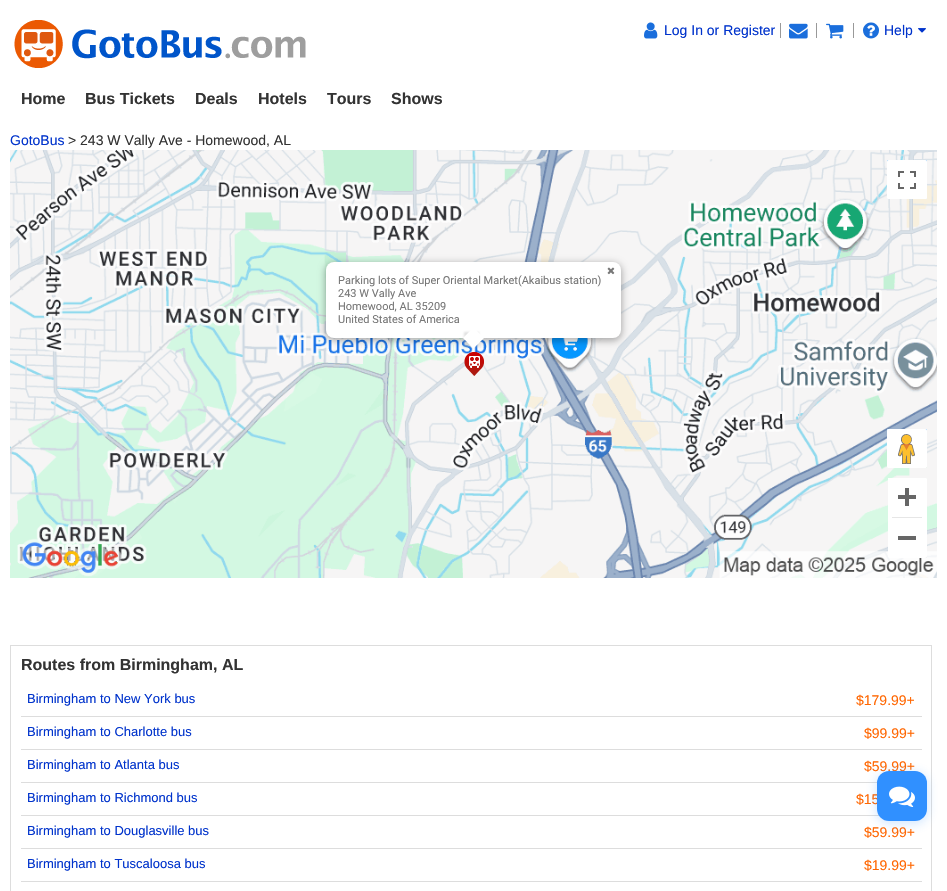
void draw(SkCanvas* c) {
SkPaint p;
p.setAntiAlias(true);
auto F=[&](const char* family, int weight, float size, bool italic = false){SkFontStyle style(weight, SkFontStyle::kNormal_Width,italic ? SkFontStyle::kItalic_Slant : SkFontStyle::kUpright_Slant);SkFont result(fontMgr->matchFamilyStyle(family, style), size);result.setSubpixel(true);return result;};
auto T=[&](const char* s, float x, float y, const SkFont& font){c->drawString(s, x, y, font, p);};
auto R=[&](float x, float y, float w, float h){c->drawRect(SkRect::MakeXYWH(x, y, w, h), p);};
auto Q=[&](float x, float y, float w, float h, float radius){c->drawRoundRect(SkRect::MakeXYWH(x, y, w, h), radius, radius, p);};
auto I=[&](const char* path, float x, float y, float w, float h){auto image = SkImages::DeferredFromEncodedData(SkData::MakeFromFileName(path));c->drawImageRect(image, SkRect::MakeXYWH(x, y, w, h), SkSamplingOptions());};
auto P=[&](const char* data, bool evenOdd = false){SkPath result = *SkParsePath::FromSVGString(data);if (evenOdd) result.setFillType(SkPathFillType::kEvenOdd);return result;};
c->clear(0xffffffff);
I("1.png",14,20,292,48);
I("2.png",644,22,14,17);
auto f1 = F("Liberation Sans",400,14);
p.setColor(0xff0033cc);
T("Log In or Register",664,35,f1);
p.setColor(0xff999999);
R(780,23,1,15);
I("3.png",789,23,19,16);
R(816,23,1,15);
I("4.png",826,23,18,16);
R(853,23,1,15);
I("5.png",863,22,16,17);
p.setColor(0xff0033cc);
T("Help",884,35,f1);
I("6.png",918,28,8,5);
auto f2 = F("Liberation Sans",700,16);
p.setColor(0xff333333);
T("Home",21,104,f2);
T("Bus Tickets",85,104,f2);
T("Deals",195,104,f2);
T("Hotels",258,104,f2);
T("Tours",327,104,f2);
T("Shows",391,104,f2);
p.setColor(0xff0033cc);
T("GotoBus",10,145,f1);
p.setColor(0xff333333);
T("> 243 W Vally Ave - Homewood, AL",68,145,f1);
I("7.png",10,150,927,428);
I("8.png",887,160,40,39);
I("9.png",887,429,40,39);
I("10.png",888,478,39,80);
p.setColor(0x4d000000);
p.setMaskFilter(SkMaskFilter::MakeBlur(kNormal_SkBlurStyle, 3.5));
c->drawRoundRect(SkRect::MakeXYWH(325,263,297,78),9,9,p);
p.setMaskFilter(nullptr);
p.setColor(0xffffffff);
Q(326,262,295,76,8);
I("11.png",607,267,8,8);
auto f3 = F("Roboto",400,11);
p.setColor(0xff777777);
T("Parking lots of Super Oriental Market(Akaibus station)",338,284,f3);
T("243 W Vally Ave",338,297,f3);
T("Homewood, AL 35209",338,310,f3);
T("United States of America",338,323,f3);
c->save();
c->clipPath(P("M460 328h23v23h-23zm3 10l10.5-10.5l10.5 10.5l-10.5 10.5z",true),true);
p.setColor(0x66b2b2b2);
p.setMaskFilter(SkMaskFilter::MakeBlur(kNormal_SkBlurStyle, 1));
c->drawRect(SkRect::MakeXYWH(464,332,15,15),p);
p.setMaskFilter(nullptr);
c->restore();
{
const SkColor colors[] = {0xffffffff,0x00ffffff,0x00ffffff};
const float stops[] = {.5,.51,1};
const SkPoint ends[] = {{474,349}, {474,327}};
p.setShader(SkGradientShader::MakeLinear(ends, colors, stops, 3, SkTileMode::kClamp));
p.setAlpha(255);
}
c->drawPath(P("M463 338l10.5-10.5l10.5 10.5l-10.5 10.5z"),p);
I("12.png",464,352,20,24);
p.setStroke(true);
p.setStrokeWidth(1);
p.setShader(nullptr);
p.setColor(0xffdddddd);
c->drawRect(SkRect::MakeXYWH(10.5,645.5,921,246),p);
p.setStroke(false);
p.setColor(0xff333333);
T("Routes from Birmingham, AL",21,670,f2);
auto f4 = F("Liberation Sans",400,13);
p.setColor(0xff0033cc);
T("Birmingham to New York bus",27,703,f4);
p.setColor(0xffdddddd);
R(21,716,901,1);
p.setColor(0xffff6600);
T("$179.99+",856,705,f1);
p.setColor(0xff0033cc);
T("Birmingham to Charlotte bus",27,736,f4);
p.setColor(0xffdddddd);
R(21,749,901,1);
p.setColor(0xffff6600);
T("$99.99+",864,738,f1);
p.setColor(0xff0033cc);
T("Birmingham to Atlanta bus",27,769,f4);
p.setColor(0xffdddddd);
R(21,782,857,1);
p.setColor(0xffff6600);
T("$59.99+",864,771,f1);
p.setColor(0xff0033cc);
T("Birmingham to Richmond bus",27,802,f4);
p.setColor(0xffdddddd);
R(21,815,859,1);
p.setColor(0xffff6600);
T("$15",856,804,f1);
p.setColor(0xff0033cc);
T("Birmingham to Douglasville bus",27,835,f4);
p.setColor(0xffdddddd);
R(21,848,901,1);
p.setColor(0xffff6600);
T("$59.99+",864,837,f1);
p.setColor(0xff0033cc);
T("Birmingham to Tuscaloosa bus",27,868,f4);
p.setColor(0xffdddddd);
R(21,881,901,1);
p.setColor(0xffff6600);
T("$19.99+",864,870,f1);
p.setColor(0x403090ff);
p.setMaskFilter(SkMaskFilter::MakeBlur(kNormal_SkBlurStyle, 6));
c->drawRoundRect(SkRect::MakeXYWH(877,773,50,50),12,12,p);
p.setMaskFilter(nullptr);
p.setColor(0xff3090ff);
Q(877,771,50,50,12);
I("13.png",889,786,26,21);
}
